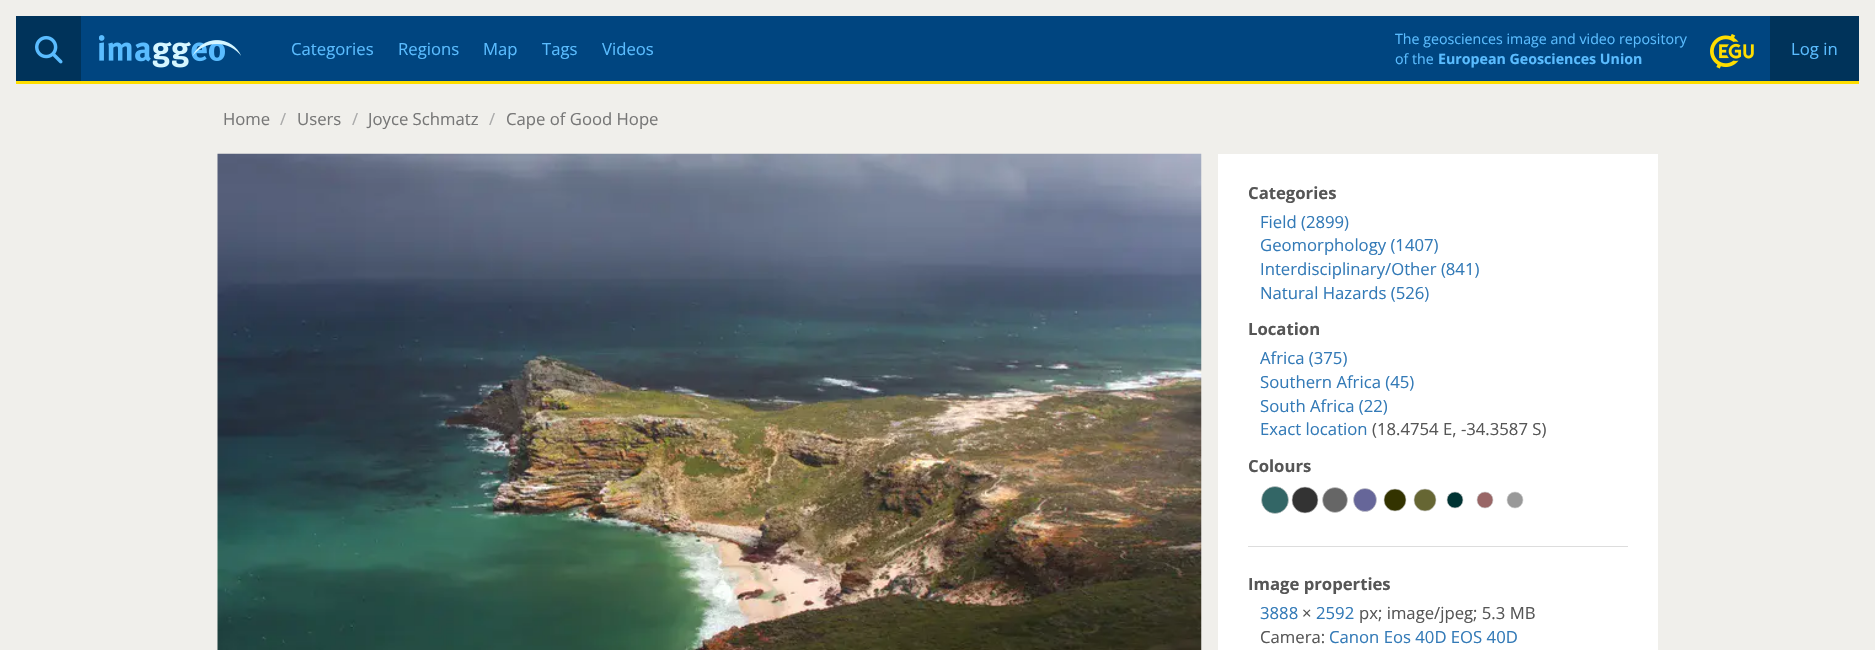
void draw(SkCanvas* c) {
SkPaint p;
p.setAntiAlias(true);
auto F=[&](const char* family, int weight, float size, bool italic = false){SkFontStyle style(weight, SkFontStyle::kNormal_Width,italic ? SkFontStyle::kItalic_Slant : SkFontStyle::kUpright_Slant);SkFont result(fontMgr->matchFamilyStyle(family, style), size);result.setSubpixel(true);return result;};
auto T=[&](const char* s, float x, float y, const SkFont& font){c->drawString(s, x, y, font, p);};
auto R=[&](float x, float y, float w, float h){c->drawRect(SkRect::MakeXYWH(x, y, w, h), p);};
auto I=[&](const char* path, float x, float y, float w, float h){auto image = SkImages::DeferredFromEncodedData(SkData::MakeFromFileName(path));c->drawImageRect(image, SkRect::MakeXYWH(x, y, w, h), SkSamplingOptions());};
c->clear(0xfff0efeb);
p.setColor(0xff004580);
R(81,16,1689,65);
p.setColor(0xffffde00);
R(16,81,1843,3);
p.setColor(0xff00335a);
R(16,16,65,65);
I("1.png",35,35,28,29);
I("2.png",99,35,142,33);
auto f1 = F("Open Sans",400,16.7);
p.setColor(0xff5abcff);
T("Categories",291,55,f1);
T("Regions",398,55,f1);
T("Map",483,55,f1);
T("Tags",542,55,f1);
T("Videos",602,55,f1);
auto f2 = F("Open Sans",400,14.2);
T("The geosciences image and video repository",1395,44,f2);
T("of the",1395,64,f2);
auto f3 = F("Open Sans",700,14.2);
T("European Geosciences Union",1438,64,f3);
I("3.png",1710,34,44,35);
p.setColor(0xff00335a);
R(1770,16,89,65);
p.setColor(0xff5abcff);
T("Log in",1791,55,f1);
p.setColor(0xff777777);
T("Home",223,125,f1);
p.setColor(0xffaaaaaa);
T("/",280,125,f1);
p.setColor(0xff777777);
T("Users",297,125,f1);
p.setColor(0xffaaaaaa);
T("/",352,125,f1);
p.setColor(0xff777777);
T("Joyce Schmatz",368,125,f1);
p.setColor(0xffaaaaaa);
T("/",489,125,f1);
p.setColor(0xff777777);
T("Cape of Good Hope",506,125,f1);
I("4.png",217,153,985,497);
p.setColor(0xffffffff);
R(1218,154,440,496);
auto f4 = F("Open Sans",700,16.7);
p.setColor(0xff565656);
T("Categories",1248,199,f4);
p.setColor(0xff337ab7);
T("Field (2899)",1260,228,f1);
T("Geomorphology (1407)",1260,251,f1);
T("Interdisciplinary/Other (841)",1260,275,f1);
T("Natural Hazards (526)",1260,299,f1);
p.setColor(0xff565656);
T("Location",1248,335,f4);
p.setColor(0xff337ab7);
T("Africa (375)",1260,364,f1);
T("Southern Africa (45)",1260,388,f1);
T("South Africa (22)",1260,412,f1);
T("Exact location",1260,435,f1);
p.setColor(0xff565656);
T("(18.4754 E, -34.3587 S)",1372,435,f1);
T("Colours",1248,472,f4);
p.setColor(0xff336666);
c->drawCircle(1275,500,13.5,p);
p.setStroke(true);
p.setStrokeWidth(.6);
p.setColor(0xffcccccc);
c->drawCircle(1275,500,13.5,p);
p.setStroke(false);
p.setColor(0xff333333);
c->drawCircle(1305,500,13,p);
p.setStroke(true);
p.setColor(0xffcccccc);
c->drawCircle(1305,500,13,p);
p.setStroke(false);
p.setColor(0xff666666);
c->drawCircle(1335,500,12.5,p);
p.setStroke(true);
p.setColor(0xffcccccc);
c->drawCircle(1335,500,12.5,p);
p.setStroke(false);
p.setColor(0xff666699);
c->drawCircle(1365,500,11.5,p);
p.setStroke(true);
p.setColor(0xffcccccc);
c->drawCircle(1365,500,11.5,p);
p.setStroke(false);
p.setColor(0xff333300);
c->drawCircle(1395,500,11,p);
p.setStroke(true);
p.setColor(0xffcccccc);
c->drawCircle(1395,500,11,p);
p.setStroke(false);
p.setColor(0xff666633);
c->drawCircle(1425,500,11,p);
p.setStroke(true);
p.setColor(0xffcccccc);
c->drawCircle(1425,500,11,p);
p.setStroke(false);
p.setColor(0xff003333);
c->drawCircle(1455,500,8,p);
p.setStroke(true);
p.setColor(0xffcccccc);
c->drawCircle(1455,500,8,p);
p.setStroke(false);
p.setColor(0xff996666);
c->drawCircle(1485,500,8,p);
p.setStroke(true);
p.setColor(0xffcccccc);
c->drawCircle(1485,500,8,p);
p.setStroke(false);
p.setColor(0xff999999);
c->drawCircle(1515,500,8,p);
p.setStroke(true);
p.setColor(0xffcccccc);
c->drawCircle(1515,500,8,p);
p.setStroke(false);
p.setColor(0xffdddddd);
R(1248,546,380,1);
p.setColor(0xff565656);
T("Image properties",1248,590,f4);
p.setColor(0xff337ab7);
T("3888",1260,619,f1);
p.setColor(0xff565656);
T("×",1302,619,f1);
p.setColor(0xff337ab7);
T("2592",1316,619,f1);
p.setColor(0xff565656);
T("px; image/jpeg; 5.3 MB",1359,619,f1);
T("Camera:",1260,643,f1);
p.setColor(0xff337ab7);
T("Canon Eos 40D EOS 40D",1329,643,f1);
}
